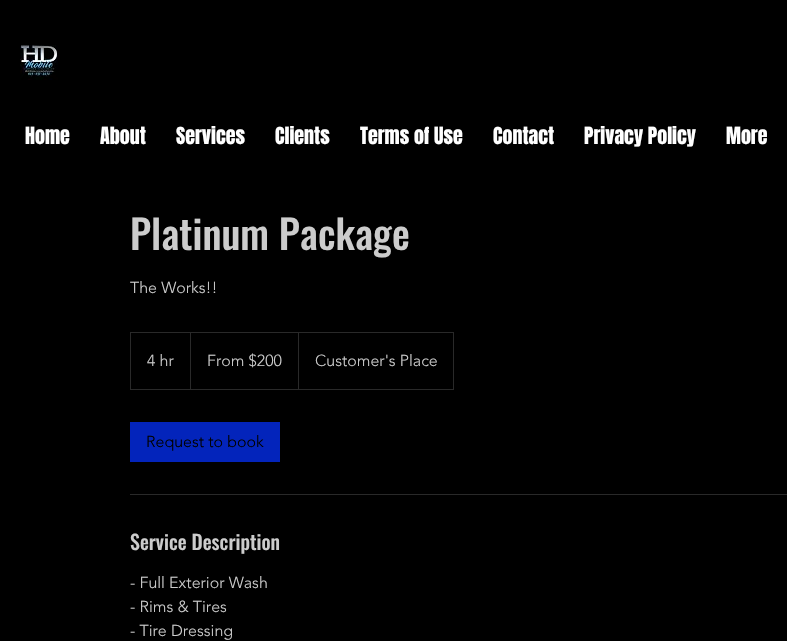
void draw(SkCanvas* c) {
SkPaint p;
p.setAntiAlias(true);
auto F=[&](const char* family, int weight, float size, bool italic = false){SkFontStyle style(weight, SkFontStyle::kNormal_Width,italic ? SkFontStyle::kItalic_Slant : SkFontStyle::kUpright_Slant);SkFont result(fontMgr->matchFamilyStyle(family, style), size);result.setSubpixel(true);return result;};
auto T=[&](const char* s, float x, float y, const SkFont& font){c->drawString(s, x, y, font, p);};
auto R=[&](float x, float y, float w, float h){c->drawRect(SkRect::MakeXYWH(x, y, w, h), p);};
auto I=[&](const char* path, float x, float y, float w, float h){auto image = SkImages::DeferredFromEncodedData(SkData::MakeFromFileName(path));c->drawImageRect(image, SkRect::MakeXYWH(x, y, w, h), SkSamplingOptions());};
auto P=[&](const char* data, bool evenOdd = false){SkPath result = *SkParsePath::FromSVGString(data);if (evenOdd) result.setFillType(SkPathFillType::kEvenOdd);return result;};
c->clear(0xff000000);
I("1.png",20,45,38,35);
auto f1 = F("Anton",400,20);
p.setColor(0xffffffff);
T("Home",25,144,f1);
T("About",100,144,f1);
T("Services",176,144,f1);
T("Clients",275,144,f1);
T("Terms of Use",360,144,f1);
T("Contact",493,144,f1);
T("Privacy Policy",584,144,f1);
T("More",726,144,f1);
auto f2 = F("Oswald",500,40);
p.setColor(0xffcccccc);
T("Platinum Package",130,250,f2);
auto f3 = F("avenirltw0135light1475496",300,16);
T("The Works!!",130,293,f3);
p.setStroke(true);
p.setStrokeWidth(1);
p.setColor(0xff292929);
c->drawRect(SkRect::MakeXYWH(130.5,332.5,323,57),p);
p.setStroke(false);
p.setColor(0xffcccccc);
T("4 hr",147,366,f3);
p.setColor(0xff292929);
c->drawPath(P("M190 389v-57l1 1v56z"),p);
p.setColor(0xffcccccc);
T("From $200",207,366,f3);
p.setColor(0xff292929);
c->drawPath(P("M298 389v-57l1 1v56z"),p);
p.setColor(0xffcccccc);
T("Customer's Place",315,366,f3);
p.setColor(0xff0324bb);
R(130,422,150,40);
p.setColor(0xff000000);
T("Request to book",146,447,f3);
p.setColor(0xff292929);
R(130,494,657,1);
auto f4 = F("Oswald",500,20);
p.setColor(0xffcccccc);
T("Service Description",130,550,f4);
T("- Full Exterior Wash",130,588,f3);
T("- Rims & Tires",130,612,f3);
T("- Tire Dressing",130,636,f3);
}
